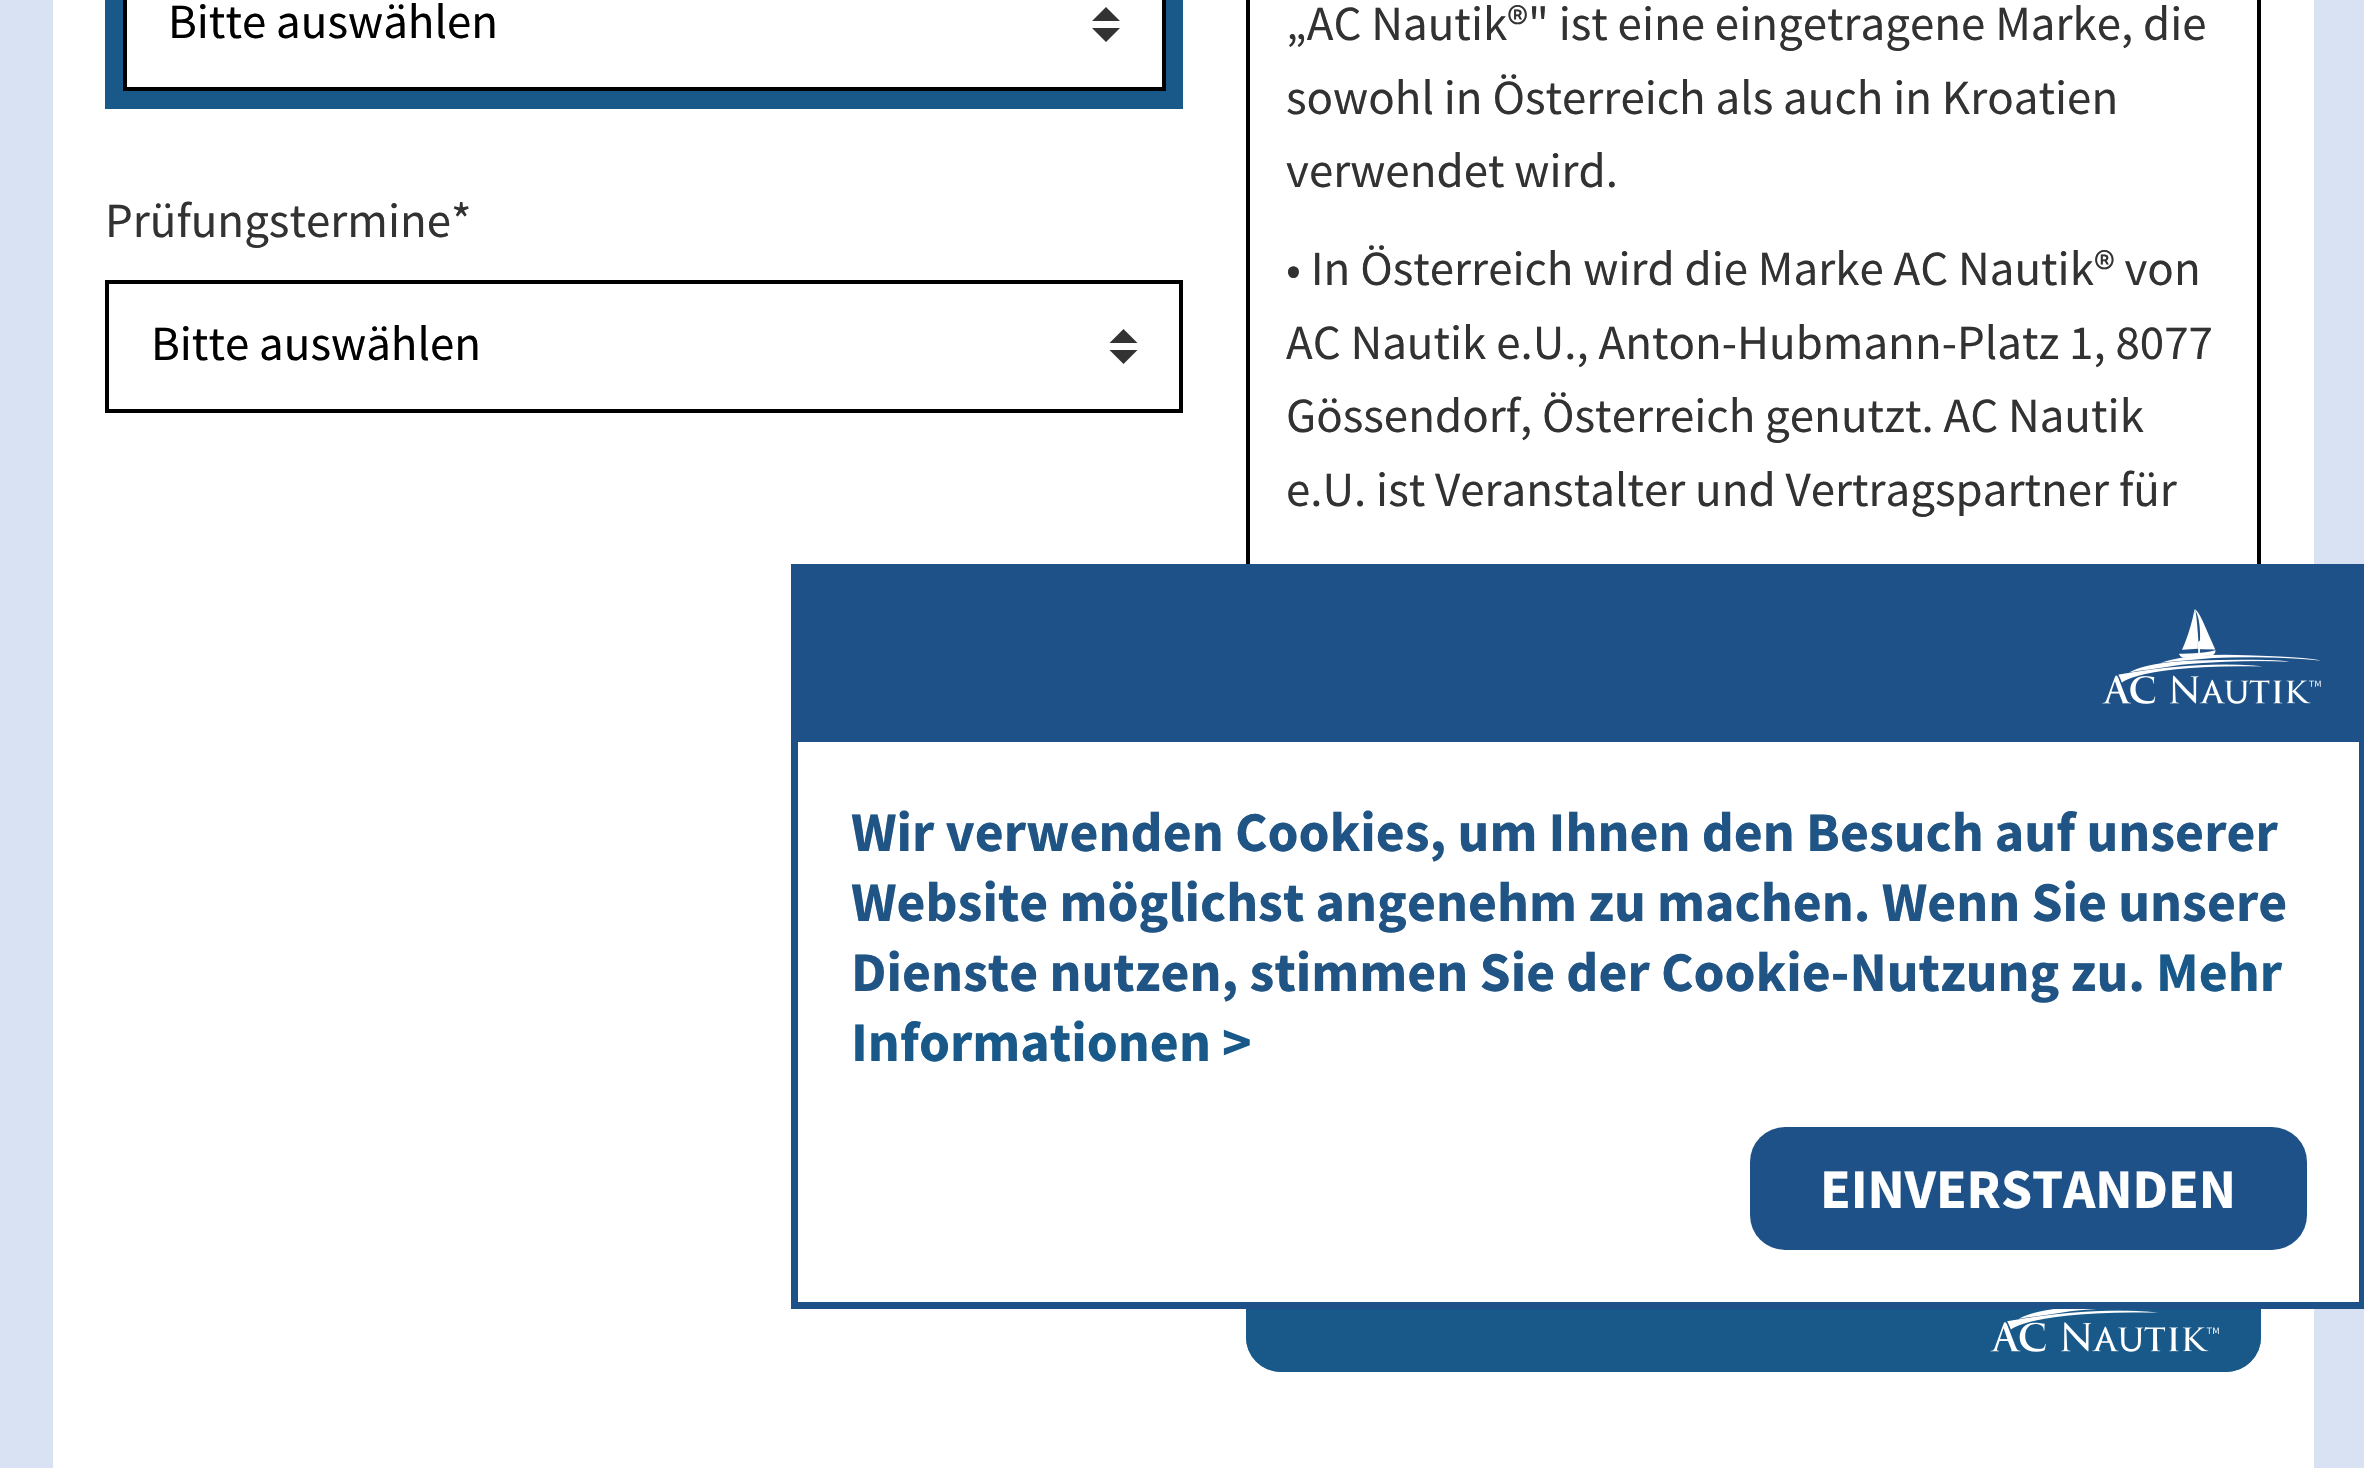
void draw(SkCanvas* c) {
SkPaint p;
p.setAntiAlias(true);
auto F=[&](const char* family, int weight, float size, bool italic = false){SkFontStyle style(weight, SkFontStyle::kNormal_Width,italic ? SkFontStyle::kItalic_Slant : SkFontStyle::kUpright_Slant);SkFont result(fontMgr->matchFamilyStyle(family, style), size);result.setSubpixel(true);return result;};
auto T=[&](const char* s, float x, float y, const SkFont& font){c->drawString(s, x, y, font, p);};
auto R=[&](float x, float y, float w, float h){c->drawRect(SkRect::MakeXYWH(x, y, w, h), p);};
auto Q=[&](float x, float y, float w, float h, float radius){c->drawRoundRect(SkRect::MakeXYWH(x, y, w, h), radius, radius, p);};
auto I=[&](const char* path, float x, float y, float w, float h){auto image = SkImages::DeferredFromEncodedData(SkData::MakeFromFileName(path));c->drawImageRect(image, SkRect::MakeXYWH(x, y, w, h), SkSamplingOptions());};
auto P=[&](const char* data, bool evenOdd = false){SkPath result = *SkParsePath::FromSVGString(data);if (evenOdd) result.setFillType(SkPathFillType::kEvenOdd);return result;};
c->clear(0xffd9e2f3);
p.setColor(0xffffffff);
R(53,0,2261,1468);
p.setColor(0xff19598a);
R(105,0,1078,109);
p.setColor(0xffffffff);
R(127,0,1035,87);
p.setColor(0xff333333);
c->drawPath(P("M1106 7l-14 14h28zm0 35l-14-14h28z"),p);
p.setStroke(true);
p.setStrokeWidth(4);
p.setColor(0xff000000);
c->drawRect(SkRect::MakeXYWH(125,-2,1039,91),p);
auto f1 = F("Source Sans Pro",400,49);
p.setStroke(false);
T("Bitte auswählen",168,38,f1);
p.setColor(0xff323232);
T("Prüfungstermine*",105,237,f1);
p.setColor(0xff333333);
c->drawPath(P("M1123.5 329l-14 14h28zm0 35l-14-14h28z"),p);
p.setStroke(true);
p.setColor(0xff000000);
c->drawRect(SkRect::MakeXYWH(107,282,1074,129),p);
p.setStroke(false);
T("Bitte auswählen",151,360,f1);
p.setStroke(true);
c->drawRect(SkRect::MakeXYWH(1248,-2,1011,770),p);
p.setStroke(false);
p.setColor(0xff323232);
T("„AC Nautik®\" ist eine eingetragene Marke, die",1286,40,f1);
T("sowohl in Österreich als auch in Kroatien",1286,114,f1);
T("verwendet wird.",1286,187,f1);
T("• In Österreich wird die Marke AC Nautik® von",1286,285,f1);
T("AC Nautik e.U., Anton-Hubmann-Platz 1, 8077",1286,359,f1);
T("Gössendorf, Österreich genutzt. AC Nautik",1286,432,f1);
T("e.U. ist Veranstalter und Vertragspartner für",1286,506,f1);
p.setColor(0xff19598a);
Q(1246,1232,1015,140,35);
I("1.png",1990,1309,229,43);
p.setStroke(true);
c->drawRoundRect(SkRect::MakeXYWH(1248,1234,1011,136),33,33,p);
p.setStroke(false);
p.setColor(0xffffffff);
R(1246,742,1113,560);
p.setStroke(true);
p.setStrokeWidth(7);
p.setColor(0xff1e5188);
c->drawRect(SkRect::MakeXYWH(794.5,567.5,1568,738),p);
p.setStroke(false);
R(798,571,1561,171);
I("2.png",2102,609,219,95);
auto f2 = F("Source Sans Pro",700,56);
p.setColor(0xff1f5484);
T("Wir verwenden Cookies, um Ihnen den Besuch auf unserer",851,851,f2);
T("Website möglichst angenehm zu machen. Wenn Sie unsere",851,921,f2);
T("Dienste nutzen, stimmen Sie der Cookie-Nutzung zu.",851,991,f2);
p.setColor(0xff19598a);
T("Mehr",2156,991,f2);
T("Informationen >",851,1061,f2);
p.setColor(0xff1e5188);
Q(1750,1127,557,123,35);
p.setColor(0xffffffff);
T("EINVERSTANDEN",1820,1208,f2);
}
